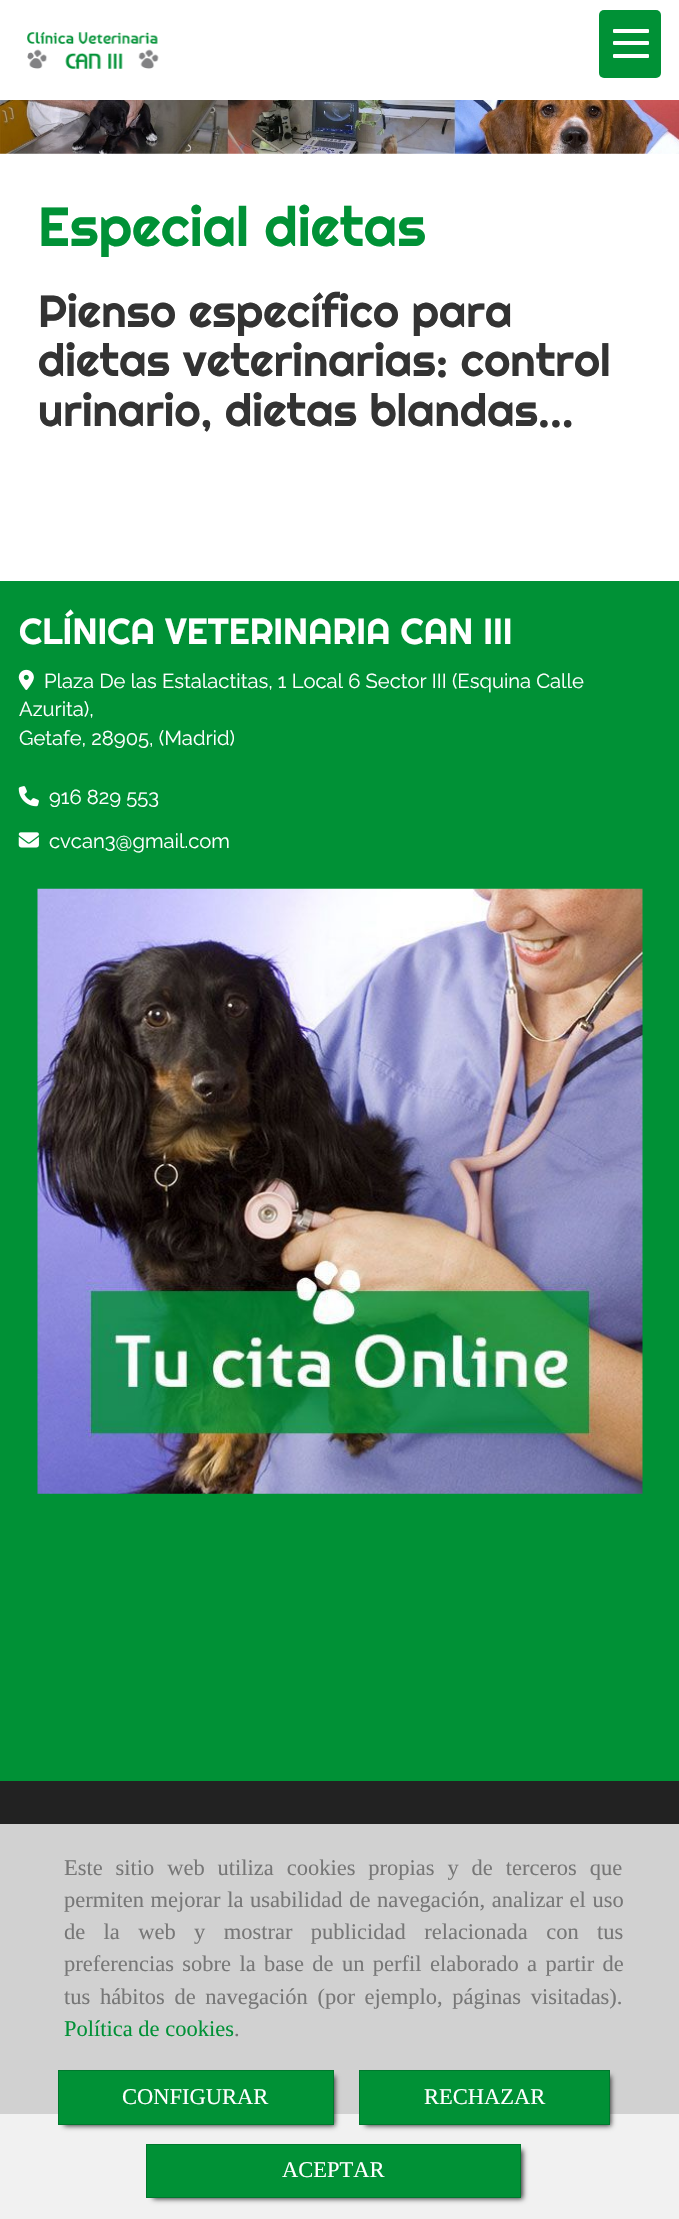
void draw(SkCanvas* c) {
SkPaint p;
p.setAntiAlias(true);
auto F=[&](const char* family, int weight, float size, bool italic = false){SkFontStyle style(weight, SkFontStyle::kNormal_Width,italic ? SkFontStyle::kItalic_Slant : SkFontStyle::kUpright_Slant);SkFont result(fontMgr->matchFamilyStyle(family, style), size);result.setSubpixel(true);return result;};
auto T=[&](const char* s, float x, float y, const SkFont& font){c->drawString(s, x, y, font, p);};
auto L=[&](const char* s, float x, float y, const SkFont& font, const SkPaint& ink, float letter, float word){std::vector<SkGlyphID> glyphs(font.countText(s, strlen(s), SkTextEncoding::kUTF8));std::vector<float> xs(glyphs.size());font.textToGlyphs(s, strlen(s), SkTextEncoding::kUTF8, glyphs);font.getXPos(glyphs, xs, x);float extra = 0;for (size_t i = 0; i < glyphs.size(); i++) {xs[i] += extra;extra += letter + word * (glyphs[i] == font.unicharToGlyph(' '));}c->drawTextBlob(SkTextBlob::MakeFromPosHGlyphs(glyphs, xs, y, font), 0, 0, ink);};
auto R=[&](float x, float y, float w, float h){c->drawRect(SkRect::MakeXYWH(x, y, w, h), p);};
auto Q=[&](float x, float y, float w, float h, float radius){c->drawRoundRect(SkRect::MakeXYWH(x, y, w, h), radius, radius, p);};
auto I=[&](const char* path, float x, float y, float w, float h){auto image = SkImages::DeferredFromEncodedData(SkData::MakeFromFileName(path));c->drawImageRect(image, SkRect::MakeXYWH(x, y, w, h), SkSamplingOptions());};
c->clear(0xffffffff);
I("1.png",27,31,132,38);
p.setColor(0xff009136);
Q(599,10,62,68,5);
p.setColor(0xffffffff);
Q(613,41,36,4,1);
Q(613,29,36,4,1);
Q(613,54,36,4,1);
I("2.png",0,100,679,54);
auto f1 = F("Righteous",400,55);
p.setColor(0xff009136);
T("Especial dietas",38,246,f1);
auto f2 = F("Righteous",400,45);
p.setColor(0xff333333);
T("Pienso específico para",38,327,f2);
T("dietas veterinarias: control",38,376,f2);
T("urinario, dietas blandas...",38,426,f2);
p.setColor(0xff009136);
R(0,581,679,1200);
auto f3 = F("Righteous",400,36.25);
p.setColor(0xffffffff);
T("CLÍNICA VETERINARIA CAN III",19,644,f3);
I("3.png",18,669,16,21);
auto f4 = F("Raleway",100,20.2);
T("Plaza De las Estalactitas, 1 Local 6 Sector III (Esquina Calle",44,688,f4);
T("Azurita),",19,716,f4);
T("Getafe, 28905, (Madrid)",19,745,f4);
I("4.png",18,786,21,21);
T("916 829 553",49,804,f4);
I("5.png",18,832,21,16);
T("cvcan3@gmail.com",49,848,f4);
I("6.png",37,888,606,606);
p.setColor(0xff222222);
R(0,1781,679,333);
p.setColor(0xd9eeeeee);
R(0,1824,679,395);
auto f5 = F("Liberation Serif",400,22.5);
p.setColor(0xff777777);
L("Este sitio web utiliza cookies propias y de terceros que",64,1875,f5,p,0,7.25);
L("permiten mejorar la usabilidad de navegación, analizar el uso",64,1907,f5,p,0,1);
L("de la web y mostrar publicidad relacionada con tus",64,1939,f5,p,0,12.75);
L("preferencias sobre la base de un perfil elaborado a partir de",64,1971,f5,p,0,2.75);
L("tus hábitos de navegación (por ejemplo, páginas visitadas).",64,2004,f5,p,0,4);
p.setColor(0xff009136);
T("Política de cookies",64,2036,f5);
p.setColor(0xff777777);
T(".",234,2036,f5);
p.setColor(0xbf000000);
p.setMaskFilter(SkMaskFilter::MakeBlur(kNormal_SkBlurStyle, 2.5));
c->drawRect(SkRect::MakeXYWH(64,2076,271,50),p);
p.setMaskFilter(nullptr);
p.setColor(0xff009136);
c->drawRect(SkRect::MakeXYWH(58.5,2070.5,275,54),p);
p.setStroke(true);
p.setStrokeWidth(1);
p.setColor(0xff00782d);
c->drawRect(SkRect::MakeXYWH(58.5,2070.5,275,54),p);
p.setStroke(false);
p.setColor(0xffffffff);
T("CONFIGURAR",122,2104,f5);
p.setColor(0xbf000000);
p.setMaskFilter(SkMaskFilter::MakeBlur(kNormal_SkBlurStyle, 2.5));
c->drawRect(SkRect::MakeXYWH(365,2076,246,50),p);
p.setMaskFilter(nullptr);
p.setColor(0xff009136);
c->drawRect(SkRect::MakeXYWH(359.5,2070.5,250,54),p);
p.setStroke(true);
p.setColor(0xff00782d);
c->drawRect(SkRect::MakeXYWH(359.5,2070.5,250,54),p);
p.setStroke(false);
p.setColor(0xffffffff);
T("RECHAZAR",424,2104,f5);
p.setColor(0xbf000000);
p.setMaskFilter(SkMaskFilter::MakeBlur(kNormal_SkBlurStyle, 2.5));
c->drawRect(SkRect::MakeXYWH(153,2150,370,49),p);
p.setMaskFilter(nullptr);
p.setColor(0xff009136);
c->drawRect(SkRect::MakeXYWH(146.5,2144.5,374,53),p);
p.setStroke(true);
p.setColor(0xff00782d);
c->drawRect(SkRect::MakeXYWH(146.5,2144.5,374,53),p);
p.setStroke(false);
p.setColor(0xffffffff);
T("ACEPTAR",282,2177,f5);
}
